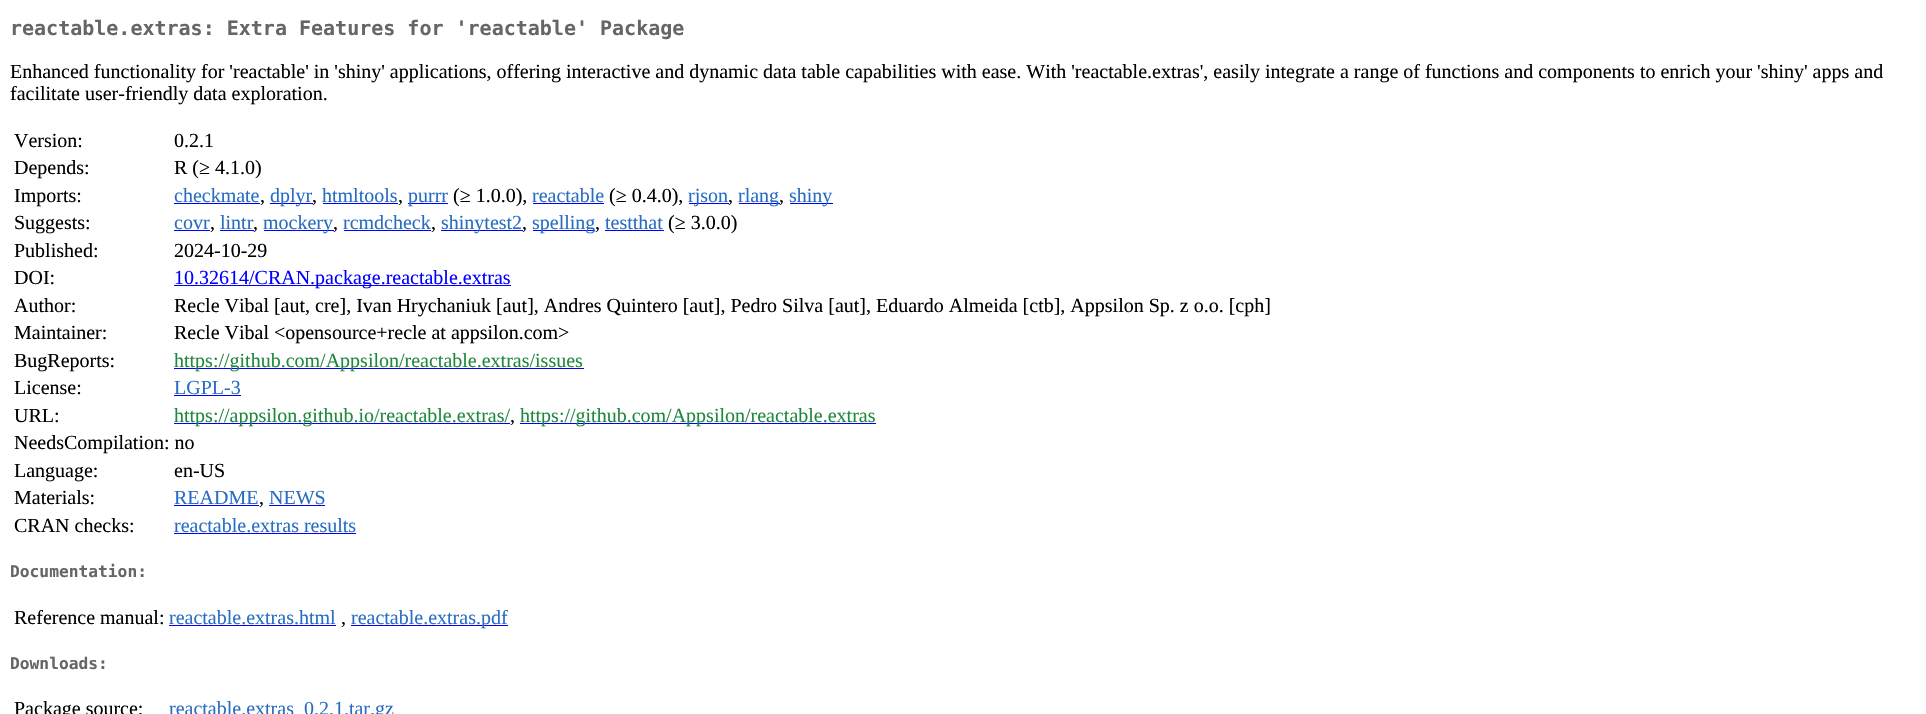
void draw(SkCanvas* c) {
SkPaint p;
p.setAntiAlias(true);
auto F=[&](const char* family, int weight, float size, bool italic = false){SkFontStyle style(weight, SkFontStyle::kNormal_Width,italic ? SkFontStyle::kItalic_Slant : SkFontStyle::kUpright_Slant);SkFont result(fontMgr->matchFamilyStyle(family, style), size);result.setSubpixel(true);return result;};
auto T=[&](const char* s, float x, float y, const SkFont& font){c->drawString(s, x, y, font, p);};
auto R=[&](float x, float y, float w, float h){c->drawRect(SkRect::MakeXYWH(x, y, w, h), p);};
c->clear(0xffffffff);
auto f1 = F("DejaVu Sans Mono",700,20);
p.setColor(0xff666666);
T("reactable.extras: Extra Features for 'reactable' Package",10,35,f1);
auto f2 = F("Liberation Serif",400,20);
p.setColor(0xff000000);
T("Enhanced functionality for 'reactable' in 'shiny' applications, offering interactive and dynamic data table capabilities with ease. With 'reactable.extras', easily integrate a range of functions and components to enrich your 'shiny' apps and",10,78,f2);
T("facilitate user-friendly data exploration.",10,100,f2);
T("Version:",14,147,f2);
T("0.2.1",174,147,f2);
T("Depends:",14,174,f2);
T("R (≥ 4.1.0)",174,174,f2);
T("Imports:",14,202,f2);
p.setColor(0xff276dc3);
T("checkmate",174,202,f2);
p.setColor(0xff0000ff);
R(174,203,86,1);
p.setColor(0xff000000);
T(",",260,202,f2);
p.setColor(0xff0000ff);
R(270,203,43,1);
p.setColor(0xff276dc3);
T("dplyr",270,202,f2);
p.setColor(0xff000000);
T(",",312,202,f2);
p.setColor(0xff276dc3);
T("htmltools",322,202,f2);
p.setColor(0xff0000ff);
R(323,203,75,1);
p.setColor(0xff000000);
T(",",398,202,f2);
p.setColor(0xff0000ff);
R(408,203,40,1);
p.setColor(0xff276dc3);
T("purrr",408,202,f2);
p.setColor(0xff000000);
T("(≥ 1.0.0),",453,202,f2);
p.setColor(0xff276dc3);
T("reactable",532,202,f2);
p.setColor(0xff0000ff);
R(533,203,71,1);
p.setColor(0xff000000);
T("(≥ 0.4.0),",609,202,f2);
p.setColor(0xff0000ff);
R(689,203,40,1);
p.setColor(0xff276dc3);
T("rjson",688,202,f2);
p.setColor(0xff000000);
T(",",728,202,f2);
p.setColor(0xff0000ff);
R(739,203,41,1);
p.setColor(0xff276dc3);
T("rlang",738,202,f2);
p.setColor(0xff000000);
T(",",779,202,f2);
p.setColor(0xff0000ff);
R(790,203,43,1);
p.setColor(0xff276dc3);
T("shiny",789,202,f2);
p.setColor(0xff000000);
T("Suggests:",14,229,f2);
p.setColor(0xff276dc3);
T("covr",174,229,f2);
p.setColor(0xff0000ff);
R(174,230,36,1);
p.setColor(0xff000000);
T(",",210,229,f2);
p.setColor(0xff276dc3);
T("lintr",220,229,f2);
p.setColor(0xff0000ff);
R(220,230,34,1);
p.setColor(0xff000000);
T(",",253,229,f2);
p.setColor(0xff0000ff);
R(264,230,70,1);
p.setColor(0xff276dc3);
T("mockery",263,229,f2);
p.setColor(0xff000000);
T(",",333,229,f2);
p.setColor(0xff276dc3);
T("rcmdcheck",343,229,f2);
p.setColor(0xff0000ff);
R(344,230,87,1);
p.setColor(0xff000000);
T(",",431,229,f2);
p.setColor(0xff0000ff);
R(441,230,82,1);
p.setColor(0xff276dc3);
T("shinytest2",441,229,f2);
p.setColor(0xff000000);
T(",",522,229,f2);
p.setColor(0xff0000ff);
R(533,230,62,1);
p.setColor(0xff276dc3);
T("spelling",532,229,f2);
p.setColor(0xff000000);
T(",",595,229,f2);
p.setColor(0xff276dc3);
T("testthat",605,229,f2);
p.setColor(0xff0000ff);
R(605,230,59,1);
p.setColor(0xff000000);
T("(≥ 3.0.0)",668,229,f2);
T("Published:",14,257,f2);
T("2024-10-29",174,257,f2);
T("DOI:",14,284,f2);
p.setColor(0xff0000ff);
R(174,285,337,1);
T("10.32614/CRAN.package.reactable.extras",174,284,f2);
p.setColor(0xff000000);
T("Author:",14,312,f2);
T("Recle Vibal [aut, cre], Ivan Hrychaniuk [aut], Andres Quintero [aut], Pedro Silva [aut], Eduardo Almeida [ctb], Appsilon Sp. z o.o. [cph]",174,312,f2);
T("Maintainer:",14,339,f2);
T("Recle Vibal <opensource+recle at appsilon.com>",174,339,f2);
T("BugReports:",14,367,f2);
p.setColor(0xff0000ff);
R(174,368,410,1);
p.setColor(0xff1f883d);
T("https://github.com/Appsilon/reactable.extras/issues",174,367,f2);
p.setColor(0xff000000);
T("License:",14,394,f2);
p.setColor(0xff276dc3);
T("LGPL-3",174,394,f2);
p.setColor(0xff0000ff);
R(174,395,67,1);
p.setColor(0xff000000);
T("URL:",14,422,f2);
p.setColor(0xff0000ff);
R(174,423,336,1);
p.setColor(0xff1f883d);
T("https://appsilon.github.io/reactable.extras/",174,422,f2);
p.setColor(0xff000000);
T(",",510,422,f2);
p.setColor(0xff0000ff);
R(520,423,356,1);
p.setColor(0xff1f883d);
T("https://github.com/Appsilon/reactable.extras",520,422,f2);
p.setColor(0xff000000);
T("NeedsCompilation: no",14,449,f2);
T("Language:",14,477,f2);
T("en-US",174,477,f2);
T("Materials:",14,504,f2);
p.setColor(0xff276dc3);
T("README",174,504,f2);
p.setColor(0xff0000ff);
R(174,505,85,1);
p.setColor(0xff000000);
T(",",259,504,f2);
p.setColor(0xff276dc3);
T("NEWS",269,504,f2);
p.setColor(0xff0000ff);
R(269,505,56,1);
p.setColor(0xff000000);
T("CRAN checks:",14,532,f2);
p.setColor(0xff276dc3);
T("reactable.extras results",174,532,f2);
p.setColor(0xff0000ff);
R(174,533,182,1);
auto f3 = F("DejaVu Sans Mono",700,16.25);
p.setColor(0xff666666);
T("Documentation:",10,577,f3);
p.setColor(0xff000000);
T("Reference manual:",14,624,f2);
p.setColor(0xff276dc3);
T("reactable.extras.html",169,624,f2);
p.setColor(0xff0000ff);
R(169,625,167,1);
p.setColor(0xff000000);
T(",",341,624,f2);
p.setColor(0xff0000ff);
R(351,625,157,1);
p.setColor(0xff276dc3);
T("reactable.extras.pdf",351,624,f2);
p.setColor(0xff666666);
T("Downloads:",10,669,f3);
p.setColor(0xff000000);
T("Package source:",14,715,f2);
p.setColor(0xff276dc3);
T("reactable.extras_0.2.1.tar.gz",169,715,f2);
}
